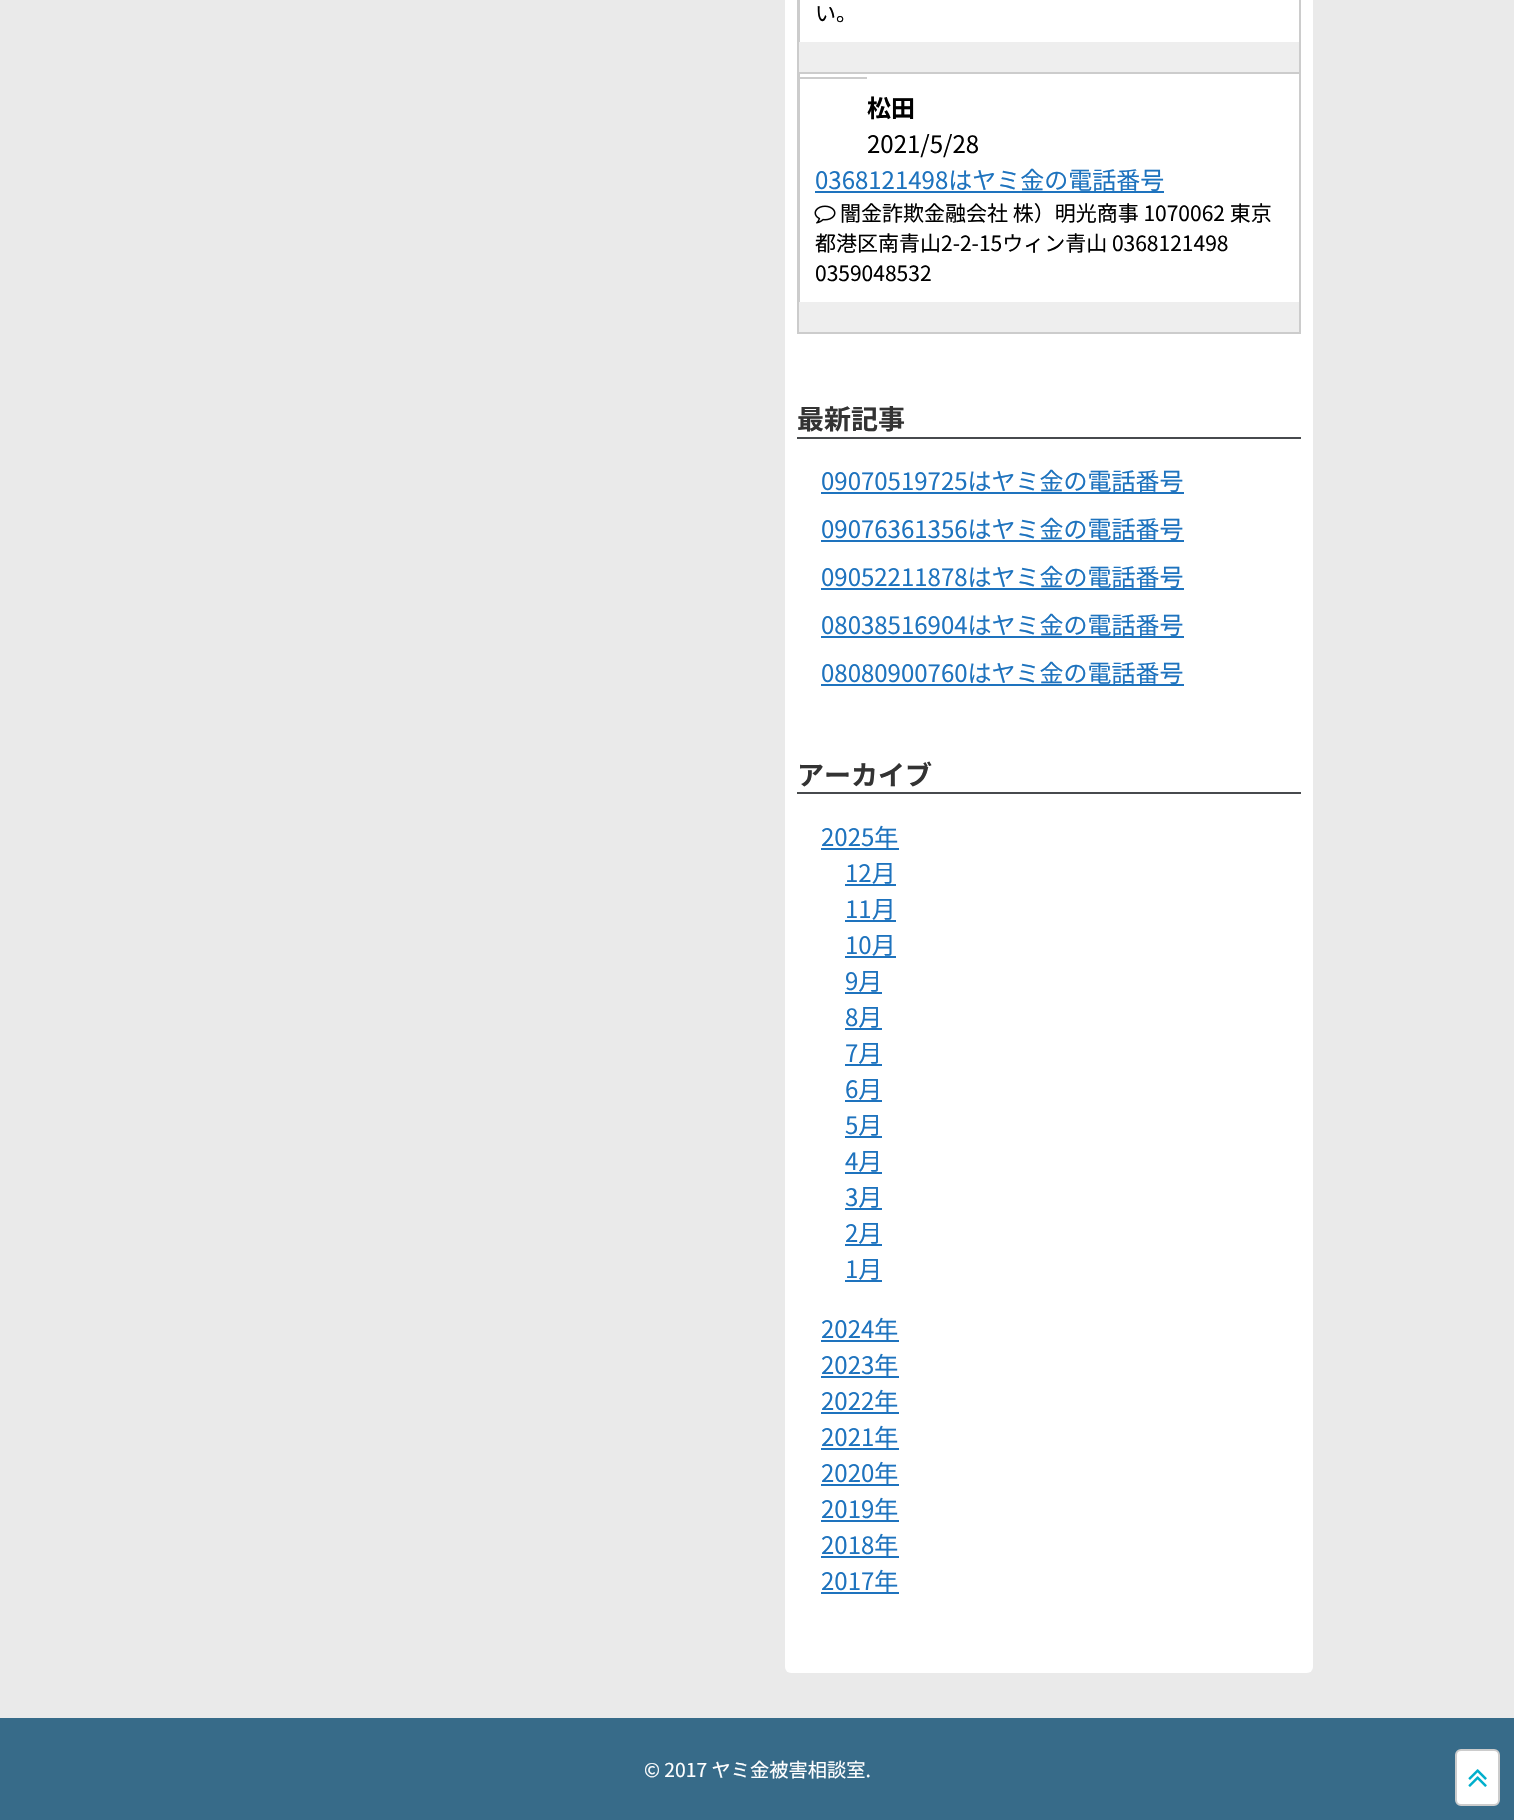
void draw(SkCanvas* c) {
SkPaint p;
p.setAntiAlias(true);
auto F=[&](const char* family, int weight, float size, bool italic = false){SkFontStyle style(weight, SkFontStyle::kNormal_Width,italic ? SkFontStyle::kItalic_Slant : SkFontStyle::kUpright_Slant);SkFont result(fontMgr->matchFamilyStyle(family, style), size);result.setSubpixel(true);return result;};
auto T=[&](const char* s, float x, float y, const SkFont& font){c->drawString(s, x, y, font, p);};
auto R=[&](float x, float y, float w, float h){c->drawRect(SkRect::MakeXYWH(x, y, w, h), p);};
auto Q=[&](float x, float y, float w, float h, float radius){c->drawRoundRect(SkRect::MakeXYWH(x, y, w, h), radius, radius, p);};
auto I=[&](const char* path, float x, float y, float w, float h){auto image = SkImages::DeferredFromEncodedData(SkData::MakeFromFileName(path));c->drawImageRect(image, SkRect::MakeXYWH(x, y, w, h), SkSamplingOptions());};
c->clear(0xffeaeaea);
p.setColor(0xffffffff);
Q(785,-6,528,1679,6);
p.setColor(0xffeeeeee);
R(799,42,500,290);
p.setColor(0xffcccccc);
R(1299,0,2,333);
R(797,332,504,2);
R(797,0,2,333);
R(799,0,1,42);
auto f1 = F("Noto Sans JP",400,21);
p.setColor(0xff000000);
T("い。",815,21,f1);
p.setColor(0xffffffff);
R(800,74,499,228);
p.setColor(0xffcccccc);
R(798,72,501,2);
R(799,72,1,230);
R(798,77,69,2);
auto f2 = F("Noto Sans JP",700,24);
p.setColor(0xff000000);
T("松田",867,117,f2);
auto f3 = F("Noto Sans JP",400,24);
T("2021/5/28",867,153,f3);
p.setColor(0xff1e73be);
T("0368121498はヤミ金の電話番号",815,189,f3);
R(815,191,349,2);
I("1.png",814,205,22,19);
p.setColor(0xff000000);
T("闇金詐欺金融会社 株）明光商事 1070062 東京",840,221,f1);
T("都港区南青山2-2-15ウィン青山 0368121498",815,251,f1);
T("0359048532",815,281,f1);
p.setColor(0xff474a4d);
R(797,437,504,2);
auto f4 = F("Noto Sans JP",700,27);
p.setColor(0xff333333);
T("最新記事",797,429,f4);
p.setColor(0xff1e73be);
T("09070519725はヤミ金の電話番号",821,490,f3);
R(821,492,363,2);
T("09076361356はヤミ金の電話番号",821,538,f3);
R(821,540,363,2);
T("09052211878はヤミ金の電話番号",821,586,f3);
R(821,588,363,2);
T("08038516904はヤミ金の電話番号",821,634,f3);
R(821,636,363,2);
T("08080900760はヤミ金の電話番号",821,682,f3);
R(821,684,363,2);
p.setColor(0xff474a4d);
R(797,792,504,2);
p.setColor(0xff333333);
T("アーカイブ",797,785,f4);
p.setColor(0xff1e73be);
T("2025年",821,846,f3);
R(821,848,78,2);
T("12月",845,882,f3);
R(845,884,51,2);
T("11月",845,918,f3);
R(845,920,51,2);
T("10月",845,954,f3);
R(845,956,51,2);
T("9月",845,990,f3);
R(845,992,37,2);
T("8月",845,1026,f3);
R(845,1028,37,2);
T("7月",845,1062,f3);
R(845,1064,37,2);
T("6月",845,1098,f3);
R(845,1100,37,2);
T("5月",845,1134,f3);
R(845,1136,37,2);
T("4月",845,1170,f3);
R(845,1172,37,2);
T("3月",845,1206,f3);
R(845,1208,37,2);
T("2月",845,1242,f3);
R(845,1244,37,2);
T("1月",845,1278,f3);
R(845,1280,37,2);
T("2024年",821,1338,f3);
R(821,1340,78,2);
T("2023年",821,1374,f3);
R(821,1376,78,2);
T("2022年",821,1410,f3);
R(821,1412,78,2);
T("2021年",821,1446,f3);
R(821,1448,78,2);
T("2020年",821,1482,f3);
R(821,1484,78,2);
T("2019年",821,1518,f3);
R(821,1520,78,2);
T("2018年",821,1554,f3);
R(821,1556,78,2);
T("2017年",821,1590,f3);
R(821,1592,78,2);
p.setColor(0xff376b89);
R(0,1718,1514,102);
auto f5 = F("Noto Sans JP",400,19.25);
p.setColor(0xffffffff);
T("© 2017 ヤミ金被害相談室.",644,1777,f5);
c->drawRoundRect(SkRect::MakeXYWH(1456,1750,43,55),5,5,p);
p.setStroke(true);
p.setStrokeWidth(2);
p.setColor(0xffcccccc);
c->drawRoundRect(SkRect::MakeXYWH(1456,1750,43,55),5,5,p);
I("2.png",1468,1769,19,18);
}
